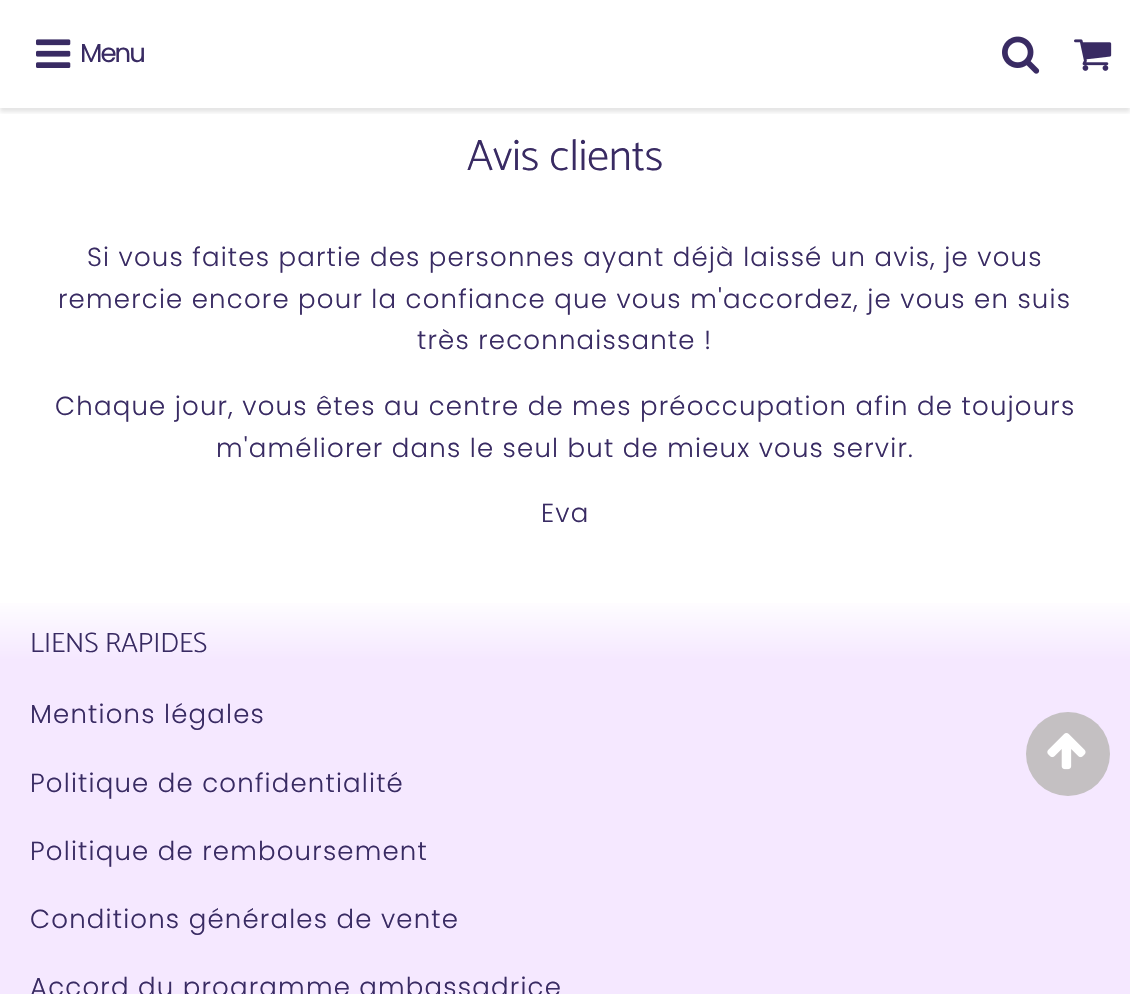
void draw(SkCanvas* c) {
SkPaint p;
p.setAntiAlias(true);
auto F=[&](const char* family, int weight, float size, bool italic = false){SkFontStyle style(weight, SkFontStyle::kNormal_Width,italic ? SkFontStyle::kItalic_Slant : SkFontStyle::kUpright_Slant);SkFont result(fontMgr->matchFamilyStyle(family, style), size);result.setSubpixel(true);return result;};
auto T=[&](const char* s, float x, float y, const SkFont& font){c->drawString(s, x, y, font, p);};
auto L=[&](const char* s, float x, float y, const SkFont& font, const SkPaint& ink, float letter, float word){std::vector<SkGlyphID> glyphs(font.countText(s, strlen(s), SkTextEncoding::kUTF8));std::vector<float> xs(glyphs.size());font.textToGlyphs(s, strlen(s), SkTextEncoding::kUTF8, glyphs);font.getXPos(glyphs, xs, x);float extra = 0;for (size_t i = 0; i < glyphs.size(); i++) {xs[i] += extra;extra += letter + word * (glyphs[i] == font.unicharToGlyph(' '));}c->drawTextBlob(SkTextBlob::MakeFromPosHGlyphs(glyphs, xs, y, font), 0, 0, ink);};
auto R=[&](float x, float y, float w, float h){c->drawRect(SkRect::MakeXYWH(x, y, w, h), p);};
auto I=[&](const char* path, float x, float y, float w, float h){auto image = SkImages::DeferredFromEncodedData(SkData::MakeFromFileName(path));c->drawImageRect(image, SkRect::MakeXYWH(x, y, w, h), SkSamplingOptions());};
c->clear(0xffffffff);
c->save();
c->clipRect(SkRect::MakeXYWH(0,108,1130,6));
p.setColor(0x1a000000);
p.setMaskFilter(SkMaskFilter::MakeBlur(kNormal_SkBlurStyle, 2));
c->drawRect(SkRect::MakeXYWH(0,4,1130,108),p);
p.setMaskFilter(nullptr);
c->restore();
I("1.png",36,39,35,29);
auto f1 = F("Poppins",400,26);
p.setColor(0xff392b63);
L("Menu",80,62,f1,p,-2,0);
I("2.png",1002,36,38,38);
I("3.png",1074,39,38,32);
auto f2 = F("Catamaran",300,44);
T("Avis clients",467,170,f2);
auto f3 = F("Poppins",300,26);
L("Si vous faites partie des personnes ayant déjà laissé un avis, je vous",87,266,f3,p,1.2,0);
L("remercie encore pour la confiance que vous m'accordez, je vous en suis",58,308,f3,p,1.2,0);
L("très reconnaissante !",417,349,f3,p,1.2,0);
L("Chaque jour, vous êtes au centre de mes préoccupation afin de toujours",55,415,f3,p,1.2,0);
L("m'améliorer dans le seul but de mieux vous servir.",216,457,f3,p,1.2,0);
L("Eva",541,522,f3,p,1.2,0);
{
const SkColor colors[] = {0xffffffff,0xfff5e8ff,0xfff5e8ff};
const float stops[] = {.01,.05,1};
const SkPoint ends[] = {{565,580}, {565,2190}};
p.setShader(SkGradientShader::MakeLinear(ends, colors, stops, 3, SkTileMode::kClamp));
p.setAlpha(255);
}
R(0,603,1130,391);
auto f4 = F("Catamaran",300,28);
p.setShader(nullptr);
p.setColor(0xff392b63);
T("LIENS RAPIDES",30,652,f4);
L("Mentions légales",30,723,f3,p,1.2,0);
L("Politique de confidentialité",30,792,f3,p,1.2,0);
L("Politique de remboursement",30,860,f3,p,1.2,0);
L("Conditions générales de vente",30,928,f3,p,1.2,0);
L("Accord du programme ambassadrice",30,996,f3,p,1.2,0);
p.setColor(0xffc4c0c2);
c->drawCircle(1068,754,42,p);
I("4.png",1047,733,39,37);
}
